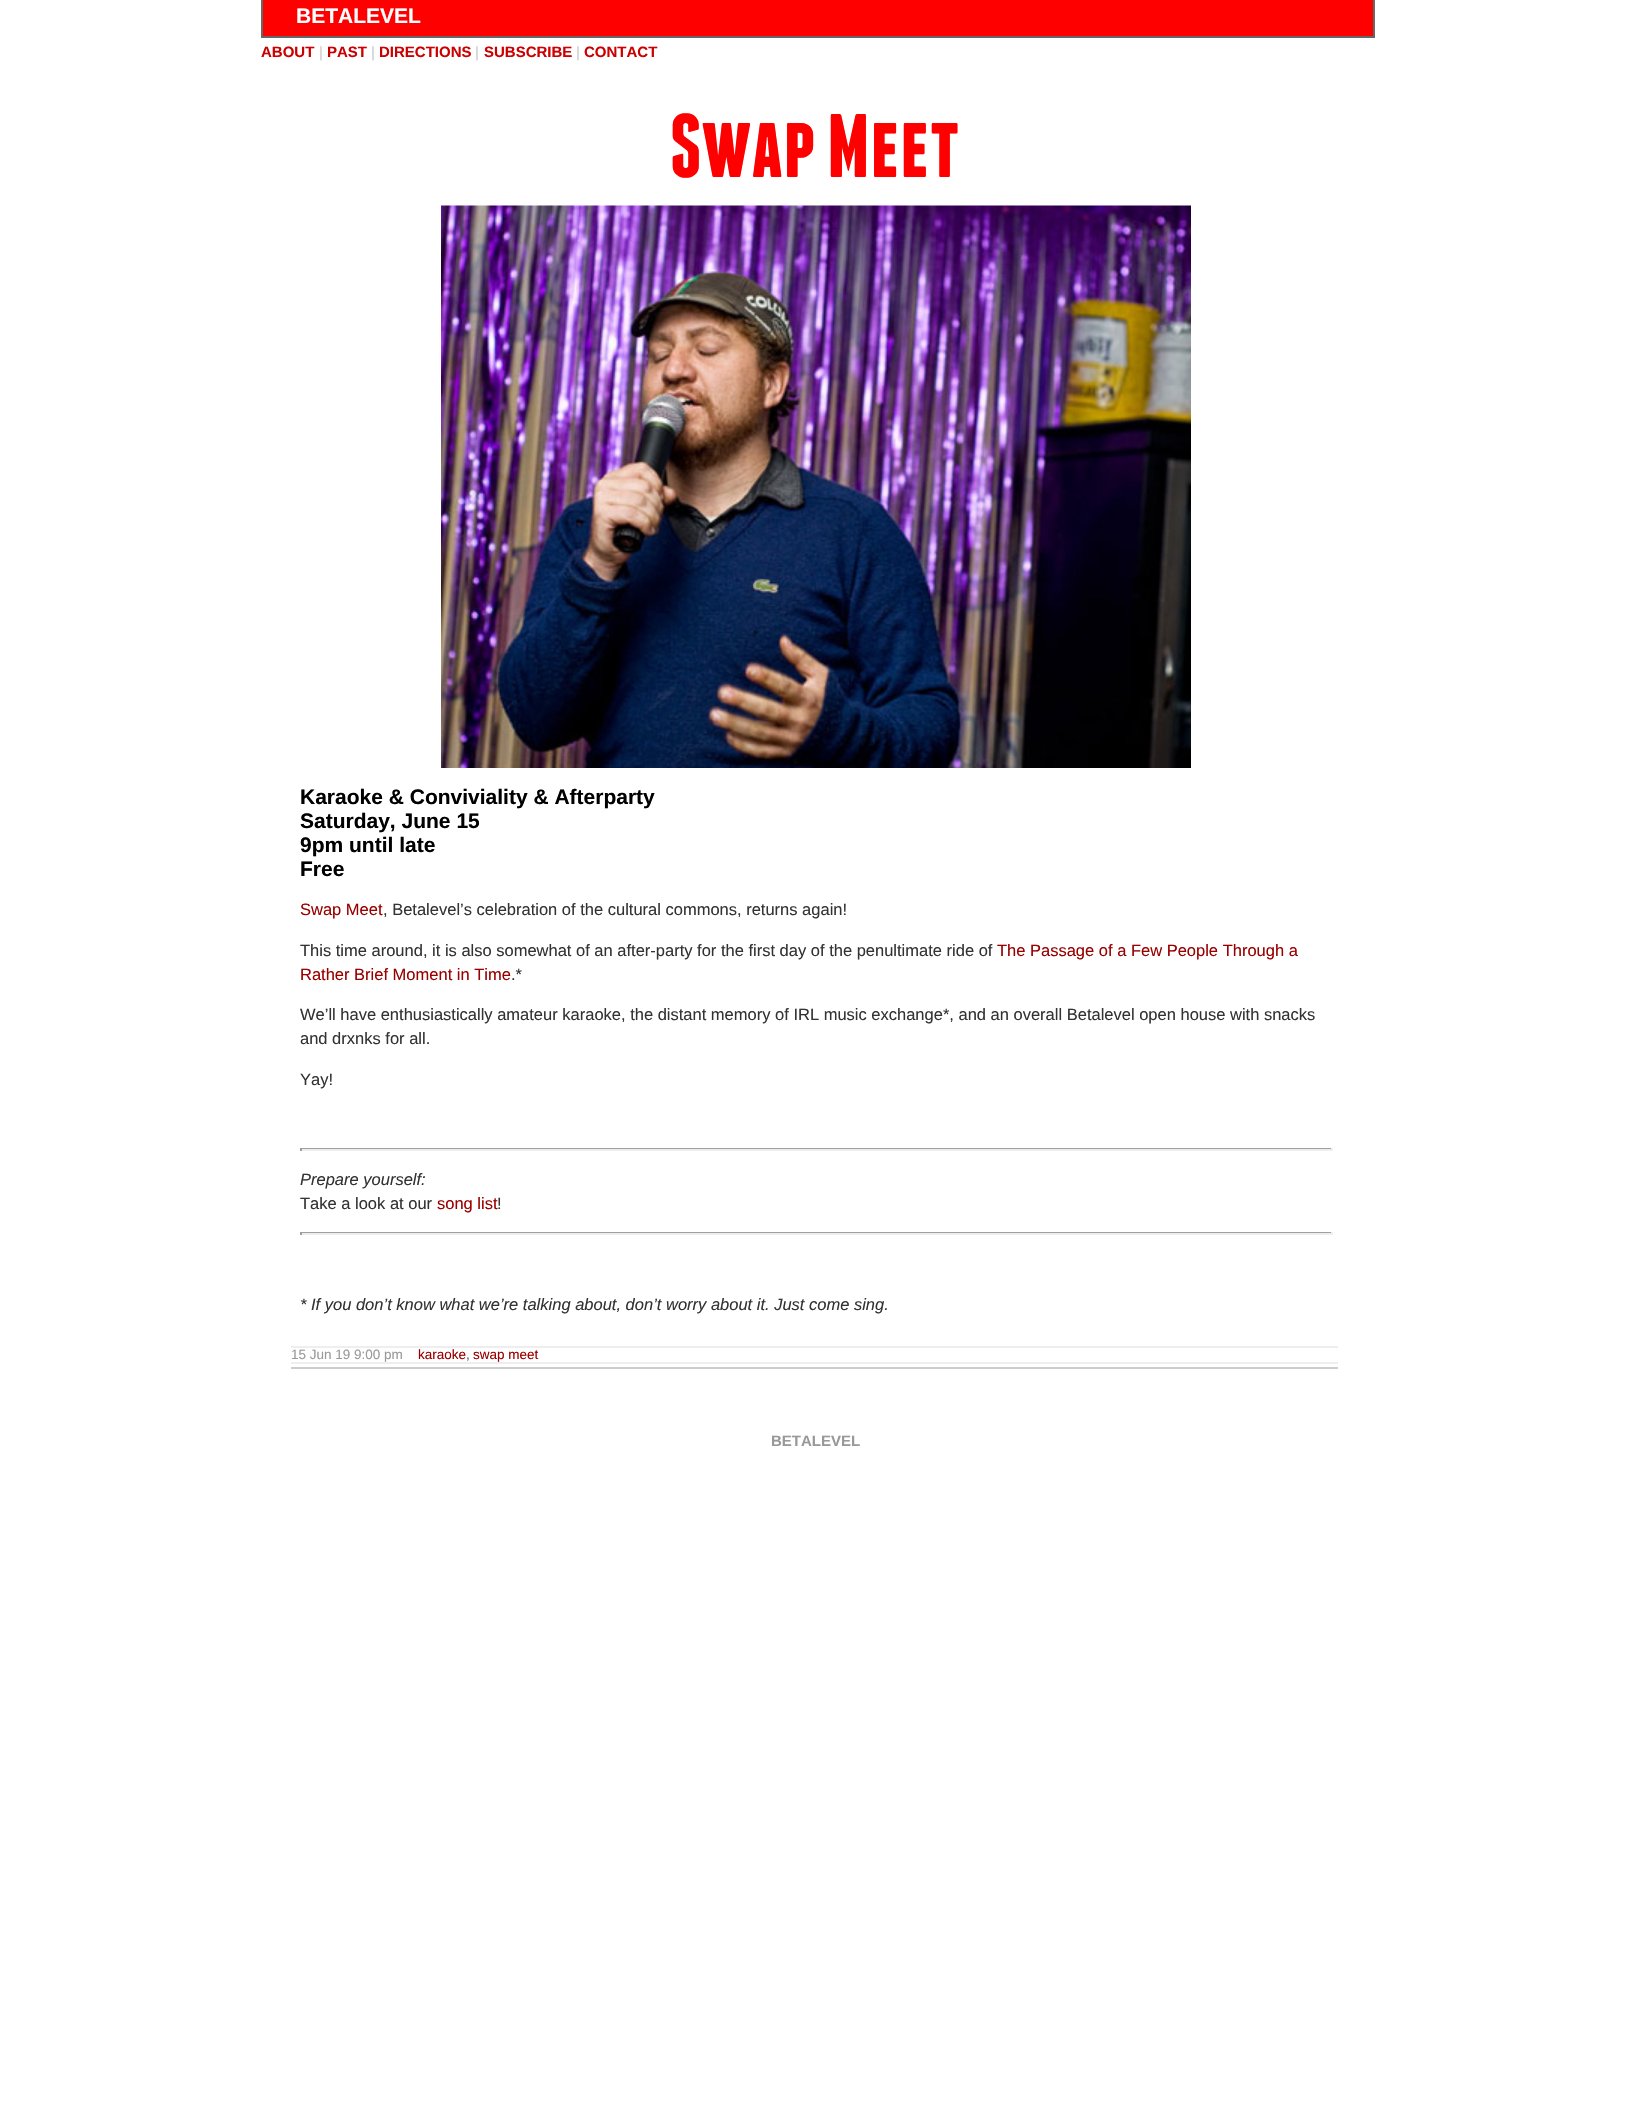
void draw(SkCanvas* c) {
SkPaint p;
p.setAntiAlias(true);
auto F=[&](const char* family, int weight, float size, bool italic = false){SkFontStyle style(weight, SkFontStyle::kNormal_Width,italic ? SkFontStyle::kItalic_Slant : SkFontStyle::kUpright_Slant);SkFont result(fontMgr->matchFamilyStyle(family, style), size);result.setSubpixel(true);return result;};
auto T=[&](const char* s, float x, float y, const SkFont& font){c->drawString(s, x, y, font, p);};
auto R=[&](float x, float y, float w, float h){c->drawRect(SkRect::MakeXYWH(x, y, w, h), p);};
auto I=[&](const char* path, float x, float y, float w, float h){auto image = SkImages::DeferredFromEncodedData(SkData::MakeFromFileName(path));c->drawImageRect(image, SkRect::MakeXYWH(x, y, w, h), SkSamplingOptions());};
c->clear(0xffffffff);
p.setColor(0xffff0000);
R(263,0,1110,36);
p.setColor(0xff666666);
R(1373,0,2,38);
R(261,36,1113,2);
R(261,0,2,38);
auto f1 = F("Liberation Sans",700,21);
p.setColor(0xffffffff);
T("BETALEVEL",296,23,f1);
auto f2 = F("Liberation Sans",700,15);
p.setColor(0xffcc0000);
T("ABOUT",261,57,f2);
auto f3 = F("Liberation Sans",400,15);
p.setColor(0xffcccccc);
T("|",319,57,f3);
p.setColor(0xffcc0000);
T("PAST",327,57,f2);
p.setColor(0xffcccccc);
T("|",371,57,f3);
p.setColor(0xffcc0000);
T("DIRECTIONS",379,57,f2);
p.setColor(0xffcccccc);
T("|",475,57,f3);
p.setColor(0xffcc0000);
T("SUBSCRIBE",484,57,f2);
p.setColor(0xffcccccc);
T("|",576,57,f3);
p.setColor(0xffcc0000);
T("CONTACT",584,57,f2);
auto f4 = F("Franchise",700,90);
p.setColor(0xffff0000);
T("Swap Meet",670,177,f4);
I("1.png",441,205,750,563);
p.setColor(0xff000000);
T("Karaoke & Conviviality & Afterparty",300,804,f1);
T("Saturday, June 15",300,828,f1);
T("9pm until late",300,852,f1);
T("Free",300,876,f1);
auto f5 = F("Liberation Sans",400,16.5);
p.setColor(0xff990000);
T("Swap Meet",300,915,f5);
p.setColor(0xff333333);
T(", Betalevel’s celebration of the cultural commons, returns again!",383,915,f5);
T("This time around, it is also somewhat of an after-party for the first day of the penultimate ride of",300,956,f5);
p.setColor(0xff990000);
T("The Passage of a Few People Through a",997,956,f5);
T("Rather Brief Moment in Time",300,980,f5);
p.setColor(0xff333333);
T(".*",511,980,f5);
T("We’ll have enthusiastically amateur karaoke, the distant memory of IRL music exchange*, and an overall Betalevel open house with snacks",300,1020,f5);
T("and drxnks for all.",300,1044,f5);
T("Yay!",300,1085,f5);
p.setColor(0xff9f9f9f);
R(300,1148,1032,1);
p.setColor(0xffeeeeee);
R(1331,1148,2,3);
R(300,1149,1032,2);
p.setColor(0xff9f9f9f);
R(300,1148,2,3);
auto f6 = F("Liberation Sans",400,16.5,true);
p.setColor(0xff333333);
T("Prepare yourself:",300,1185,f6);
T("Take a look at our",300,1209,f5);
p.setColor(0xff990000);
T("song list",437,1209,f5);
p.setColor(0xff333333);
T("!",497,1209,f5);
p.setColor(0xff9f9f9f);
R(300,1232,1032,1);
p.setColor(0xffeeeeee);
R(1331,1232,2,3);
R(300,1233,1032,2);
p.setColor(0xff9f9f9f);
R(300,1232,2,3);
p.setColor(0xff333333);
T("* If you don’t know what we’re talking about, don’t worry about it. Just come sing.",300,1310,f6);
p.setColor(0xffeeeeee);
R(291,1346,1047,2);
R(291,1362,1047,2);
auto f7 = F("Liberation Sans",400,13.5);
p.setColor(0xff999999);
T("15 Jun 19 9:00 pm",291,1359,f7);
p.setColor(0xff990000);
T("karaoke",418,1359,f7);
p.setColor(0xff666666);
T(",",466,1359,f7);
p.setColor(0xff990000);
T("swap meet",473,1359,f7);
p.setColor(0xffcccccc);
R(291,1367,1047,2);
p.setColor(0xff999999);
T("BETALEVEL",771,1446,f2);
}
